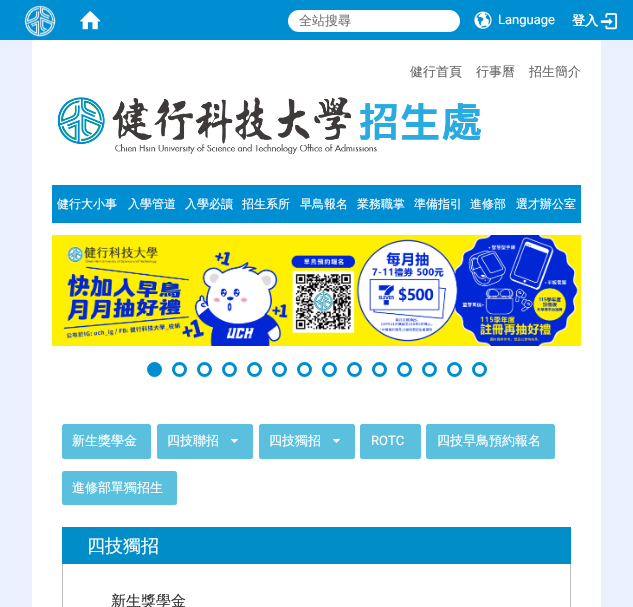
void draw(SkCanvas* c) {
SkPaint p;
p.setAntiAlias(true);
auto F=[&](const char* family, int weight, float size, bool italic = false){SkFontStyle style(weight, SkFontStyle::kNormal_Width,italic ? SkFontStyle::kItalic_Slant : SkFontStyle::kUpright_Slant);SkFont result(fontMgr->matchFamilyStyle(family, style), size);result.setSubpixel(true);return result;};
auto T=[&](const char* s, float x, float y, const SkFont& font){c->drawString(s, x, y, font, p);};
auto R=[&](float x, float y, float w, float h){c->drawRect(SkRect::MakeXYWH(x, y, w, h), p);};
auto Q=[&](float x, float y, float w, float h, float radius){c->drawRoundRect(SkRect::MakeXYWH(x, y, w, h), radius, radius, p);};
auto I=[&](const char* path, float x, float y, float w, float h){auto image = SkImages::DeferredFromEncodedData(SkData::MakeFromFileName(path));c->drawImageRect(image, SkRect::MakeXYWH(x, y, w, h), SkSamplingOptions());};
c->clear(0xffebf0ff);
p.setColor(0xff008ed3);
R(0,0,633,40);
I("1.png",24,5,32,32);
I("2.png",80,11,21,19);
p.setColor(0xffffffff);
Q(288,10,172,22,11);
auto f1 = F("WenQuanYi Zen Hei",500,13);
p.setColor(0xff757575);
T("全站搜尋",299,25,f1);
I("3.png",474,11,18,18);
auto f2 = F("Roboto",400,13);
p.setColor(0xffffffff);
T("Language",498,24,f2);
auto f3 = F("WenQuanYi Zen Hei",700,13);
T("登入",572,25,f3);
I("4.png",600,13,18,17);
R(32,40,569,145);
p.setColor(0xff666666);
T("健行首頁",410,76,f1);
T("行事曆",476,76,f1);
T("招生簡介",529,76,f1);
I("5.png",57,97,424,57);
p.setColor(0xffffffff);
R(32,185,569,422);
I("6.png",52,235,529,111);
p.setColor(0xff008ed3);
c->drawCircle(154.5,369.5,6,p);
p.setStroke(true);
p.setStrokeWidth(3);
c->drawCircle(154.5,369.5,6,p);
c->drawCircle(179.5,369.5,6,p);
c->drawCircle(204.5,369.5,6,p);
c->drawCircle(229.5,369.5,6,p);
c->drawCircle(254.5,369.5,6,p);
c->drawCircle(279.5,369.5,6,p);
c->drawCircle(304.5,369.5,6,p);
c->drawCircle(329.5,369.5,6,p);
c->drawCircle(354.5,369.5,6,p);
c->drawCircle(379.5,369.5,6,p);
c->drawCircle(404.5,369.5,6,p);
c->drawCircle(429.5,369.5,6,p);
c->drawCircle(454.5,369.5,6,p);
c->drawCircle(479.5,369.5,6,p);
p.setStroke(false);
R(52,185,529,38);
auto f4 = F("WenQuanYi Zen Hei",500,12);
p.setColor(0xffffffff);
T("健行大小事",57,208,f4);
T("入學管道",128,208,f4);
T("入學必讀",185,208,f4);
T("招生系所",242,208,f4);
T("早鳥報名",300,208,f4);
T("業務職掌",357,208,f4);
T("準備指引",414,208,f4);
T("進修部",470,208,f4);
T("選才辦公室",516,208,f4);
p.setColor(0xff5bc0de);
Q(62,424,89,35,2.5);
p.setColor(0xffffffff);
T("新生獎學金",72,445,f1);
p.setColor(0xff5bc0de);
Q(157,424,96,35,2.5);
p.setColor(0xffffffff);
T("四技聯招",167,445,f1);
I("7.png",231,439,7,4);
p.setColor(0xff5bc0de);
Q(259,424,96,35,2.5);
p.setColor(0xffffffff);
T("四技獨招",269,445,f1);
I("7.png",333,439,7,4);
p.setColor(0xff5bc0de);
Q(360,424,61,35,2.5);
p.setColor(0xffffffff);
T("ROTC",371,445,f2);
p.setColor(0xff5bc0de);
Q(426,424,129,35,2.5);
p.setColor(0xffffffff);
T("四技早鳥預約報名",437,445,f1);
p.setColor(0xff5bc0de);
Q(62,471,115,34,2.5);
p.setColor(0xffffffff);
T("進修部單獨招生",72,492,f1);
p.setStroke(true);
p.setStrokeWidth(1);
p.setColor(0xffbfbfbf);
c->drawRect(SkRect::MakeXYWH(62.5,563.5,508,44),p);
p.setStroke(false);
p.setColor(0xff008dc8);
R(62,527,509,37);
auto f5 = F("WenQuanYi Zen Hei",500,18);
p.setColor(0xffffffff);
T("四技獨招",87,552,f5);
auto f6 = F("WenQuanYi Zen Hei",500,15);
p.setColor(0xff333333);
T("新生獎學金",111,606,f6);
}
